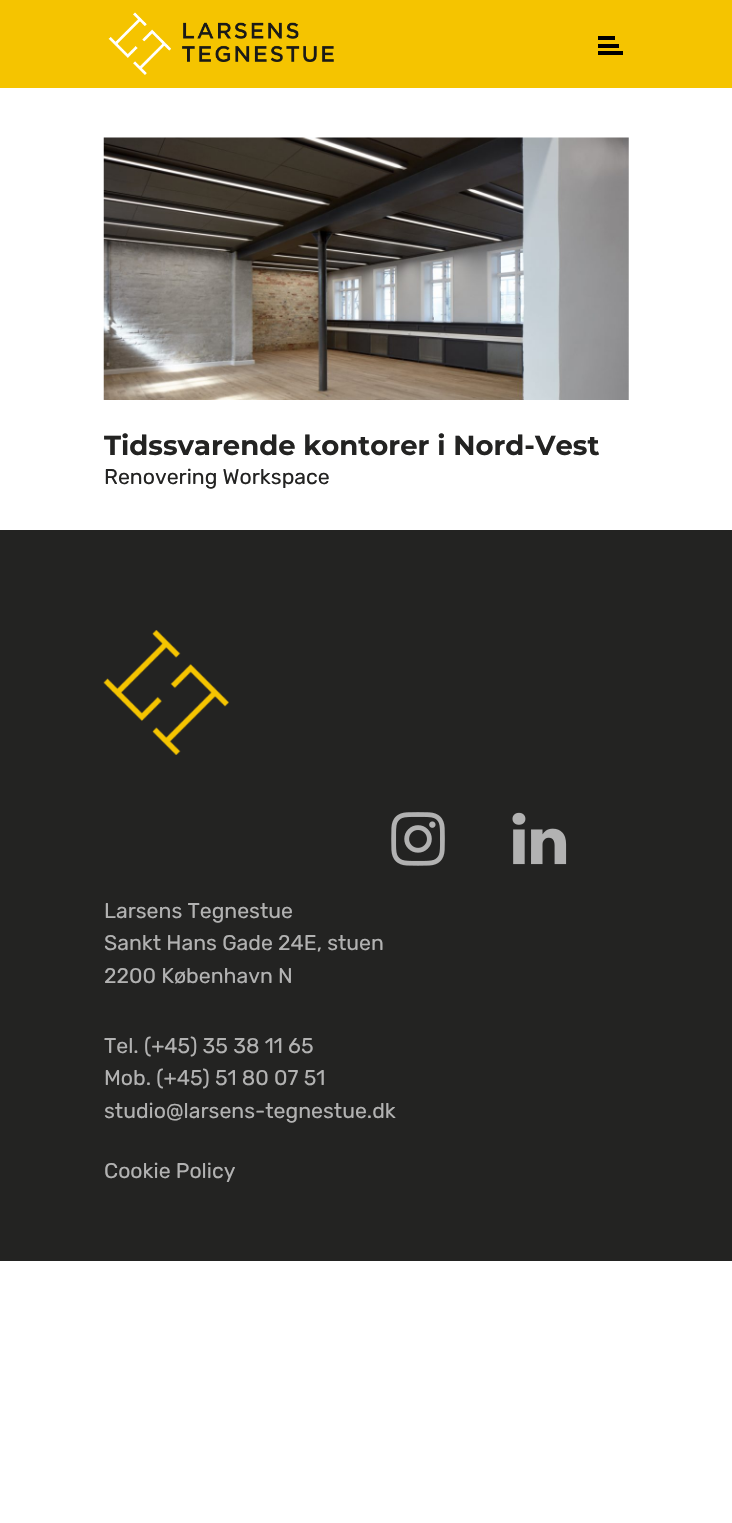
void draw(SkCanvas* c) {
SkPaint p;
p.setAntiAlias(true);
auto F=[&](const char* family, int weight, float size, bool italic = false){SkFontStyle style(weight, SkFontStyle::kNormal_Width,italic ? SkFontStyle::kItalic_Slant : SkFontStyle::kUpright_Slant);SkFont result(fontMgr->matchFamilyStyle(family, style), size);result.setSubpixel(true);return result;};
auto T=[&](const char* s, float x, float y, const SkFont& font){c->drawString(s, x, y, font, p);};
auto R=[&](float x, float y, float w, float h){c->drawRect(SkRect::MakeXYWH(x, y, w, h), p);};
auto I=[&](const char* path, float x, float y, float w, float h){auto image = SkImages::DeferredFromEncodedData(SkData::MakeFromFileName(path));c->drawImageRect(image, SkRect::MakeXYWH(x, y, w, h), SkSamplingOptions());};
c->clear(0xffffffff);
p.setColor(0xfff5c400);
R(0,0,732,88);
I("1.png",108,12,226,63);
p.setColor(0xff000000);
R(598,36,17,4);
R(598,44,21,4);
R(598,51,25,4);
I("2.png",103,137,526,263);
auto f1 = F("Montserrat",700,27.5);
p.setColor(0xff232322);
T("Tidssvarende kontorer i Nord-Vest",104,455,f1);
auto f2 = F("Rubik",400,21.25);
T("Renovering Workspace",104,484,f2);
R(0,530,732,731);
I("3.png",103,630,126,125);
I("4.png",391,812,54,54);
I("5.png",512,812,55,53);
p.setColor(0xffb2b2b2);
T("Larsens Tegnestue",104,918,f2);
T("Sankt Hans Gade 24E, stuen",104,950,f2);
T("2200 København N",104,983,f2);
T("Tel. (+45) 35 38 11 65",104,1053,f2);
T("Mob. (+45) 51 80 07 51",104,1085,f2);
T("studio@larsens-tegnestue.dk",104,1118,f2);
T("Cookie Policy",104,1178,f2);
}
